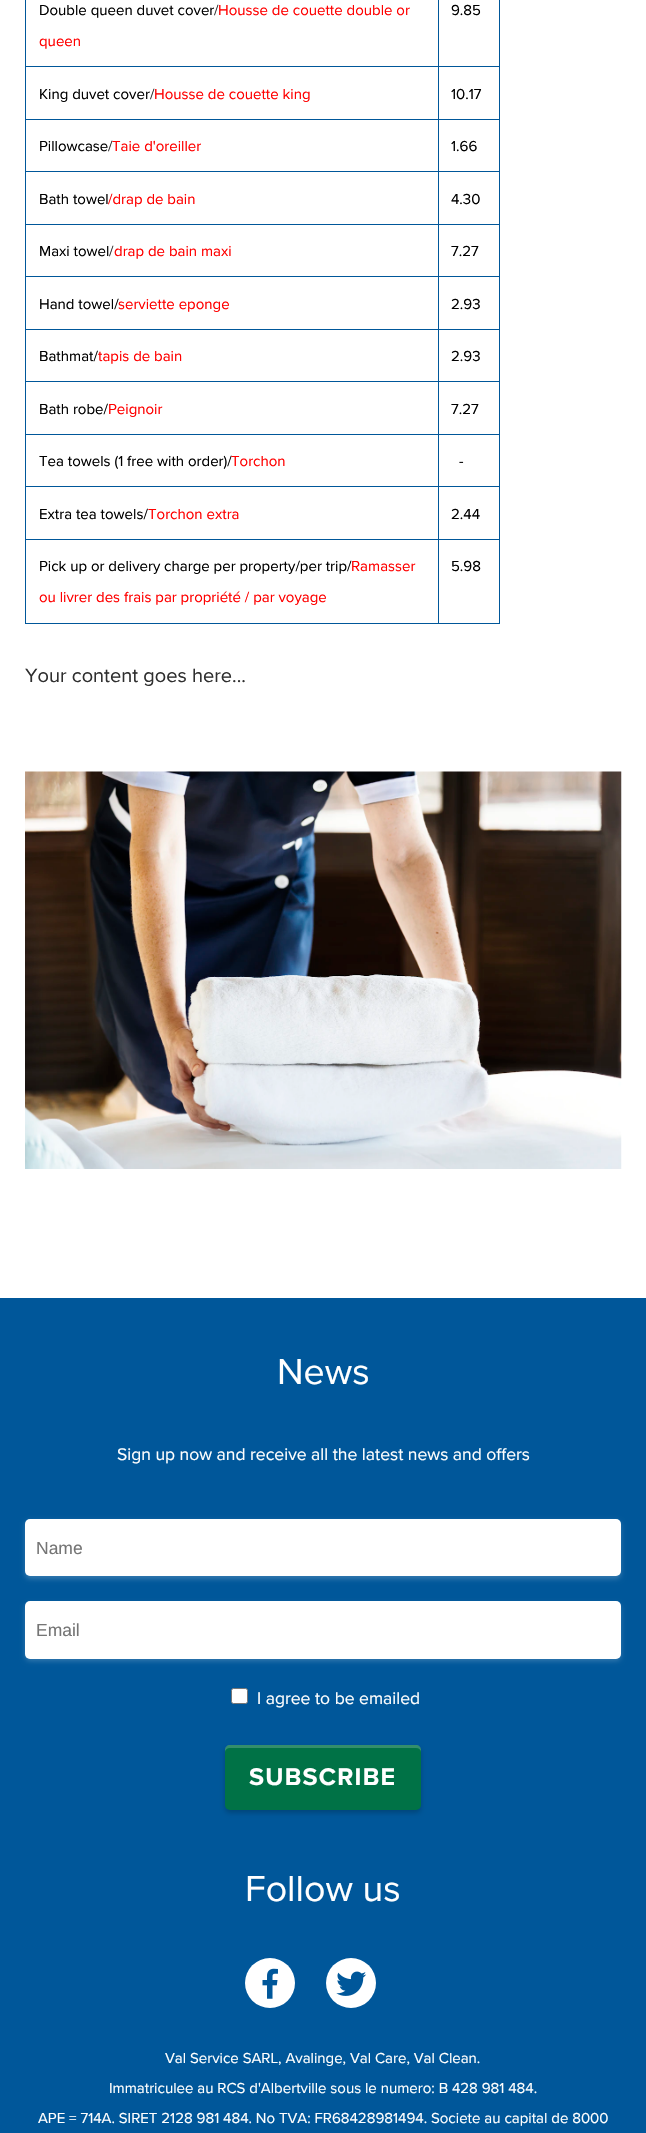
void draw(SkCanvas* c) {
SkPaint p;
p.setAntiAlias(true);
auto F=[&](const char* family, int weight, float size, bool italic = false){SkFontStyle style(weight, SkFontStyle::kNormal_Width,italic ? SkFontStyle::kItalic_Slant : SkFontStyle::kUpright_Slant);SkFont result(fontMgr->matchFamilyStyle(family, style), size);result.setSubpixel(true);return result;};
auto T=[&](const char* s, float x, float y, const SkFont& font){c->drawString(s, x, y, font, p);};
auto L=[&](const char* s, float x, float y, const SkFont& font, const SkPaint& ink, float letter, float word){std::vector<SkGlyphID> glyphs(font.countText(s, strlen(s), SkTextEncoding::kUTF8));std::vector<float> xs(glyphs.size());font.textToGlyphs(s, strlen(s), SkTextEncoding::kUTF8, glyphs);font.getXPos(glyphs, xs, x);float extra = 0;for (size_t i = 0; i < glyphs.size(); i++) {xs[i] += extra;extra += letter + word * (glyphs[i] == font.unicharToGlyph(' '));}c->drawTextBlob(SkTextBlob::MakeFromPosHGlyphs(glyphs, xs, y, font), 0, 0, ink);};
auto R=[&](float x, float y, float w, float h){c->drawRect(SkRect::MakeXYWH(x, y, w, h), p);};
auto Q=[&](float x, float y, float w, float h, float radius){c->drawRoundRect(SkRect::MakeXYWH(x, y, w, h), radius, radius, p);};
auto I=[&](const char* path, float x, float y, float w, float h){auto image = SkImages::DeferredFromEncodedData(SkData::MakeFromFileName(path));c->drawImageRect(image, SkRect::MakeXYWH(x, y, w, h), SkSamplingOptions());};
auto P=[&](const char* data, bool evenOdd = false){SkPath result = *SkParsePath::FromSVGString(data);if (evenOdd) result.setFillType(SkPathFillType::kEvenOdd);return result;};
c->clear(0xffffffff);
p.setColor(0xff00579a);
R(499,0,1,624);
R(25,623,475,1);
R(25,0,1,624);
auto f1 = F("Proxima Nova",400,15);
p.setColor(0xff000000);
T("Double queen duvet cover",39,15,f1);
p.setColor(0xff2f2f2f);
T("/",214,15,f1);
p.setColor(0xffff0000);
T("Housse de couette double or",218,15,f1);
T("queen",39,46,f1);
p.setColor(0xff00579a);
R(438,66,62,1);
R(438,119,62,1);
R(438,171,62,1);
R(438,224,62,1);
R(438,276,62,1);
R(438,329,62,1);
R(438,381,62,1);
R(438,434,62,1);
R(438,486,62,1);
R(438,539,62,1);
R(438,539,1,85);
R(25,539,414,1);
R(438,486,1,54);
R(25,486,414,1);
R(438,434,1,54);
R(25,434,414,1);
R(438,381,1,54);
R(25,381,414,1);
R(438,329,1,54);
R(25,329,414,1);
R(438,276,1,54);
R(25,276,414,1);
R(438,224,1,54);
R(25,224,414,1);
R(438,171,1,54);
R(25,171,414,1);
R(438,119,1,54);
R(25,119,414,1);
R(438,66,1,54);
R(25,66,414,1);
R(438,0,1,68);
p.setColor(0xff000000);
T("9.85",451,15,f1);
T("King duvet cover",39,99,f1);
p.setColor(0xff2f2f2f);
T("/",150,99,f1);
p.setColor(0xffff0000);
T("Housse de couette king",154,99,f1);
p.setColor(0xff000000);
T("10.17",451,99,f1);
T("Pillowcase",39,151,f1);
p.setColor(0xff2f2f2f);
T("/",108,151,f1);
p.setColor(0xffff0000);
T("Taie d'oreiller",112,151,f1);
p.setColor(0xff000000);
T("1.66",451,151,f1);
T("Bath towel",39,204,f1);
p.setColor(0xffff0000);
T("/drap de bain",108,204,f1);
p.setColor(0xff000000);
T("4.30",451,204,f1);
T("Maxi towel",39,256,f1);
p.setColor(0xff2f2f2f);
T("/",109,256,f1);
p.setColor(0xffff0000);
T("drap de bain maxi",114,256,f1);
p.setColor(0xff000000);
T("7.27",451,256,f1);
T("Hand towel/",39,309,f1);
p.setColor(0xffff0000);
T("serviette eponge",118,309,f1);
p.setColor(0xff000000);
T("2.93",451,309,f1);
T("Bathmat/",39,361,f1);
p.setColor(0xffff0000);
T("tapis de bain",98,361,f1);
p.setColor(0xff000000);
T("2.93",451,361,f1);
T("Bath robe/",39,414,f1);
p.setColor(0xffff0000);
T("Peignoir",108,414,f1);
p.setColor(0xff000000);
T("7.27",451,414,f1);
T("Tea towels (1 free with order)/",39,466,f1);
p.setColor(0xffff0000);
T("Torchon",231,466,f1);
p.setColor(0xff000000);
T("-",459,466,f1);
T("Extra tea towels/",39,519,f1);
p.setColor(0xffff0000);
T("Torchon extra",148,519,f1);
p.setColor(0xff000000);
T("2.44",451,519,f1);
T("Pick up or delivery charge per property/per trip/",39,571,f1);
p.setColor(0xffff0000);
T("Ramasser",351,571,f1);
T("ou livrer des frais par propriété / par voyage",39,602,f1);
p.setColor(0xff000000);
T("5.98",451,571,f1);
auto f2 = F("Proxima Nova",400,20);
p.setColor(0xff2f2f2f);
T("Your content goes here...",25,682,f2);
I("1.png",25,771,597,398);
p.setColor(0xff00579a);
R(0,1298,646,835);
auto f3 = F("Proxima Nova",400,37.5);
p.setColor(0xffffffff);
T("News",277,1384,f3);
auto f4 = F("Proxima Nova",400,17.5);
T("Sign up now and receive all the latest news and offers",117,1460,f4);
p.setColor(0x33ffffff);
p.setMaskFilter(SkMaskFilter::MakeBlur(kNormal_SkBlurStyle, 2.5));
c->drawRoundRect(SkRect::MakeXYWH(25,1521,596,58),5,5,p);
p.setMaskFilter(nullptr);
p.setColor(0xffffffff);
Q(25,1519,596,57,5);
auto f5 = F("Liberation Sans",400,17.5);
p.setColor(0xff757575);
T("Name",36,1554,f5);
p.setColor(0x33ffffff);
p.setMaskFilter(SkMaskFilter::MakeBlur(kNormal_SkBlurStyle, 2.5));
c->drawRoundRect(SkRect::MakeXYWH(25,1604,596,57),5,5,p);
p.setMaskFilter(nullptr);
p.setColor(0xffffffff);
Q(25,1601,596,58,5);
p.setColor(0xff757575);
T("Email",36,1636,f5);
p.setColor(0xffffffff);
c->drawRoundRect(SkRect::MakeXYWH(231.5,1688.5,16,15),2,2,p);
p.setStroke(true);
p.setStrokeWidth(1);
p.setColor(0xff767676);
c->drawRoundRect(SkRect::MakeXYWH(231.5,1688.5,16,15),2,2,p);
p.setStroke(false);
p.setColor(0xffffffff);
T("I agree to be emailed",257,1704,f4);
p.setColor(0x33000000);
p.setMaskFilter(SkMaskFilter::MakeBlur(kNormal_SkBlurStyle, 2.5));
c->drawRoundRect(SkRect::MakeXYWH(225,1748,196,65),5,5,p);
p.setMaskFilter(nullptr);
p.setColor(0xff007246);
Q(225,1745,196,65,5);
p.setColor(0x33ffffff);
c->drawPath(P("M230 1748h186c3 0 5 2 5 4v-2c0-3-2-5-5-5h-186c-3 0-5 2-5 5v2c0-2 2-4 5-4z"),p);
auto f6 = F("Proxima Nova",700,25);
p.setColor(0xffffffff);
L("SUBSCRIBE",249,1785,f6,p,1.25,0);
T("Follow us",245,1901,f3);
c->drawCircle(270,1983,25,p);
I("2.png",262,1968,16,31);
c->drawCircle(351,1983,25,p);
I("3.png",336,1971,31,25);
T("Val Service SARL, Avalinge, Val Care, Val Clean.",165,2063,f1);
T("Immatriculee au RCS d'Albertville sous le numero: B 428 981 484.",109,2093,f1);
T("APE = 714A. SIRET 2128 981 484. No TVA: FR68428981494. Societe au capital de 8000",38,2123,f1);
}
